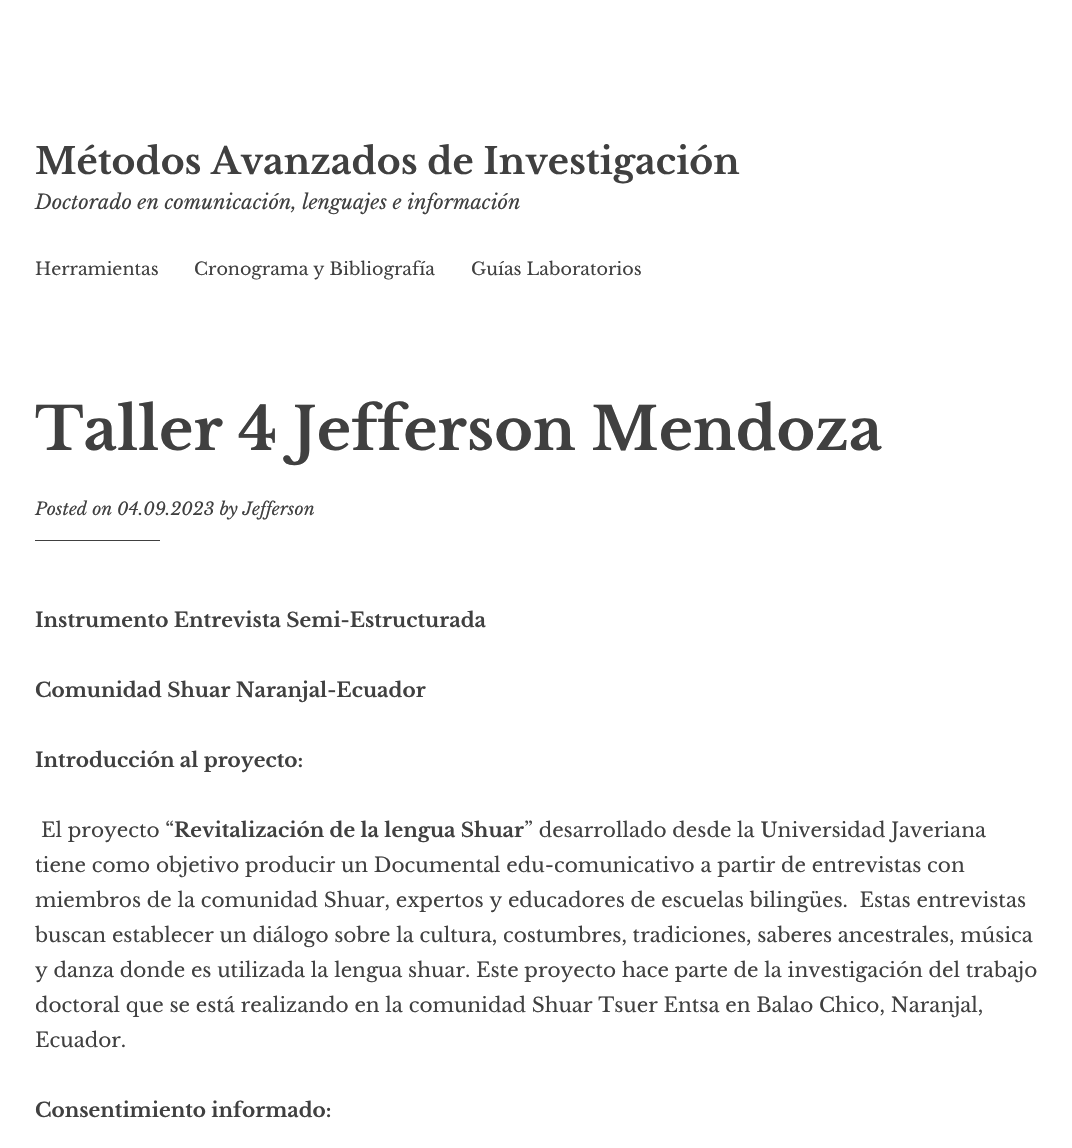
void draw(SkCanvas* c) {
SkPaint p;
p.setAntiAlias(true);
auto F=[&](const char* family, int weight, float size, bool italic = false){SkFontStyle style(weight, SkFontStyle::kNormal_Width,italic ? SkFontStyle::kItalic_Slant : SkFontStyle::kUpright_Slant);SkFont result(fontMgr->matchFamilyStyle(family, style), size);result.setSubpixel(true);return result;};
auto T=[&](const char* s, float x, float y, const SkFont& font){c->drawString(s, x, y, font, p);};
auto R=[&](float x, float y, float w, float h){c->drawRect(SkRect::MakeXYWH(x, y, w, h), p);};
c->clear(0xffffffff);
auto f1 = F("Libre Baskerville",700,36.25);
p.setColor(0xff404040);
T("Métodos Avanzados de Investigación",35,174,f1);
auto f2 = F("Libre Baskerville",400,20,true);
T("Doctorado en comunicación, lenguajes e información",35,209,f2);
auto f3 = F("Libre Baskerville",400,17.5);
T("Herramientas",35,275,f3);
T("Cronograma y Bibliografía",194,275,f3);
T("Guías Laboratorios",471,275,f3);
auto f4 = F("Libre Baskerville",700,58.75);
T("Taller 4 Jefferson Mendoza",35,450,f4);
auto f5 = F("Libre Baskerville",400,17.5,true);
T("Posted on 04.09.2023 by Jefferson",35,515,f5);
R(35,540,125,1);
auto f6 = F("Libre Baskerville",700,20);
T("Instrumento Entrevista Semi-Estructurada",35,627,f6);
T("Comunidad Shuar Naranjal-Ecuador",35,697,f6);
T("Introducción al proyecto:",35,767,f6);
auto f7 = F("Libre Baskerville",400,20);
T("El proyecto “",41,837,f7);
T("Revitalización de la lengua Shuar",174,837,f6);
T("” desarrollado desde la Universidad Javeriana",524,837,f7);
T("tiene como objetivo producir un Documental edu-comunicativo a partir de entrevistas con",35,872,f7);
T("miembros de la comunidad Shuar, expertos y educadores de escuelas bilingües.  Estas entrevistas",35,907,f7);
T("buscan establecer un diálogo sobre la cultura, costumbres, tradiciones, saberes ancestrales, música",35,942,f7);
T("y danza donde es utilizada la lengua shuar. Este proyecto hace parte de la investigación del trabajo",35,977,f7);
T("doctoral que se está realizando en la comunidad Shuar Tsuer Entsa en Balao Chico, Naranjal,",35,1012,f7);
T("Ecuador.",35,1047,f7);
T("Consentimiento informado:",35,1117,f6);
}
